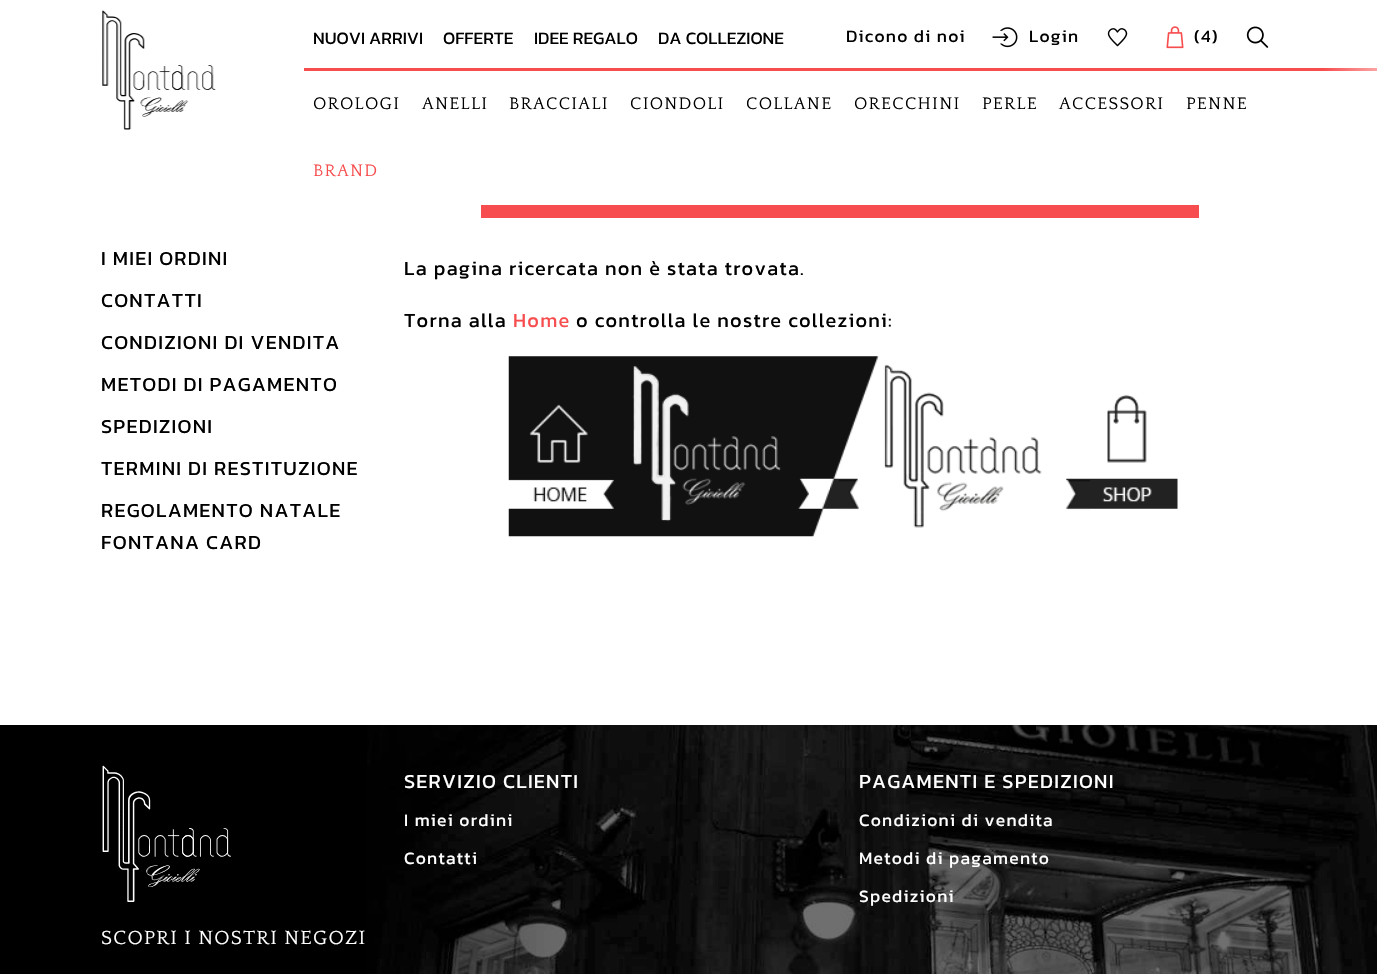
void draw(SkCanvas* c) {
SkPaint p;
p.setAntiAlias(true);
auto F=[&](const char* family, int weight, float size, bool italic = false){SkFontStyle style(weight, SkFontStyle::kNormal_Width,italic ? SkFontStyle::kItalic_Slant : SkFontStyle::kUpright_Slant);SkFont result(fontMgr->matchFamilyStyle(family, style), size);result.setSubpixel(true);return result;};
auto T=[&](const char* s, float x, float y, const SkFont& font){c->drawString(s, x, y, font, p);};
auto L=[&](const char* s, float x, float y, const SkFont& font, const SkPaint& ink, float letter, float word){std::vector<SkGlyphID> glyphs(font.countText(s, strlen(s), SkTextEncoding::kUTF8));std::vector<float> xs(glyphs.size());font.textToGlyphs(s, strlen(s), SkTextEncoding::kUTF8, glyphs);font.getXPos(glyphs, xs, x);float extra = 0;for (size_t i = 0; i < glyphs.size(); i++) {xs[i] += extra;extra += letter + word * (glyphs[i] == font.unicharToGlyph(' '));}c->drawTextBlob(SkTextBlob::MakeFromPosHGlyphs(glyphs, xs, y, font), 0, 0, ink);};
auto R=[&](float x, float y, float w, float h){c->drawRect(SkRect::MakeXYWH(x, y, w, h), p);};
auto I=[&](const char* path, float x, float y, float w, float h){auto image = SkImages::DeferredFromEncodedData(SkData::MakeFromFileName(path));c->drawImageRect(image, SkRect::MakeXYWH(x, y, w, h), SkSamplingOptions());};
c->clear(0xffffffff);
I("1.png",102,10,114,120);
auto f1 = F("Kanit",400,17.5);
p.setColor(0xff000000);
T("NUOVI ARRIVI",313,44,f1);
T("OFFERTE",443,44,f1);
T("IDEE REGALO",534,44,f1);
T("DA COLLEZIONE",658,44,f1);
L("Dicono di noi",846,42,f1,p,1.25,0);
I("2.png",992,27,26,21);
L("Login",1029,42,f1,p,1.25,0);
I("3.png",1107,28,21,19);
I("4.png",1166,26,18,23);
L("(4)",1194,42,f1,p,1.25,0);
I("5.png",1246,26,23,22);
{
const SkColor colors[] = {0xfff74d4e,0xfff74d4e,0xffffffff};
const float stops[] = {0,.3,1};
const SkPoint ends[] = {{1276,69}, {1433,69}};
p.setShader(SkGradientShader::MakeLinear(ends, colors, stops, 3, SkTileMode::kClamp));
p.setAlpha(255);
}
R(1276,68,101,3);
p.setShader(nullptr);
p.setColor(0xfff74d4e);
R(304,68,972,3);
auto f2 = F("Quattrocento",400,17.5);
p.setColor(0xff000000);
L("OROLOGI",313,109,f2,p,1.25,0);
L("ANELLI",422,109,f2,p,1.25,0);
L("BRACCIALI",509,109,f2,p,1.25,0);
L("CIONDOLI",630,109,f2,p,1.25,0);
L("COLLANE",746,109,f2,p,1.25,0);
L("ORECCHINI",854,109,f2,p,1.25,0);
L("PERLE",982,109,f2,p,1.25,0);
L("ACCESSORI",1059,109,f2,p,1.25,0);
L("PENNE",1186,109,f2,p,1.25,0);
p.setColor(0xfff74d4e);
L("BRAND",313,176,f2,p,1.25,0);
auto f3 = F("Kanit",400,20);
p.setColor(0xff000000);
L("I MIEI ORDINI",101,265,f3,p,1.25,0);
L("CONTATTI",101,307,f3,p,1.25,0);
L("CONDIZIONI DI VENDITA",101,349,f3,p,1.25,0);
L("METODI DI PAGAMENTO",101,391,f3,p,1.25,0);
L("SPEDIZIONI",101,433,f3,p,1.25,0);
L("TERMINI DI RESTITUZIONE",101,475,f3,p,1.25,0);
L("REGOLAMENTO NATALE",101,517,f3,p,1.25,0);
L("FONTANA CARD",101,549,f3,p,1.25,0);
p.setColor(0xfff74d4e);
R(481,205,718,13);
p.setColor(0xff000000);
L("La pagina ricercata non è stata trovata.",404,275,f3,p,1.25,0);
L("Torna alla",404,327,f3,p,1.25,0);
p.setColor(0xfff74d4e);
L("Home",513,327,f3,p,1.25,0);
p.setColor(0xff000000);
L("o controlla le nostre collezioni:",576,327,f3,p,1.25,0);
I("6.png",508,356,322,181);
I("7.png",830,356,348,172);
R(0,725,367,249);
I("8.png",367,725,1010,249);
p.setColor(0xffffffff);
L("SERVIZIO CLIENTI",404,788,f3,p,1.25,0);
L("I miei ordini",404,826,f1,p,1.25,0);
L("Contatti",404,864,f1,p,1.25,0);
L("PAGAMENTI E SPEDIZIONI",859,788,f3,p,1.25,0);
L("Condizioni di vendita",859,826,f1,p,1.25,0);
L("Metodi di pagamento",859,864,f1,p,1.25,0);
L("Spedizioni",859,902,f1,p,1.25,0);
I("9.png",102,765,129,137);
auto f4 = F("Quattrocento",400,20);
L("SCOPRI I NOSTRI NEGOZI",101,944,f4,p,1.25,0);
}
